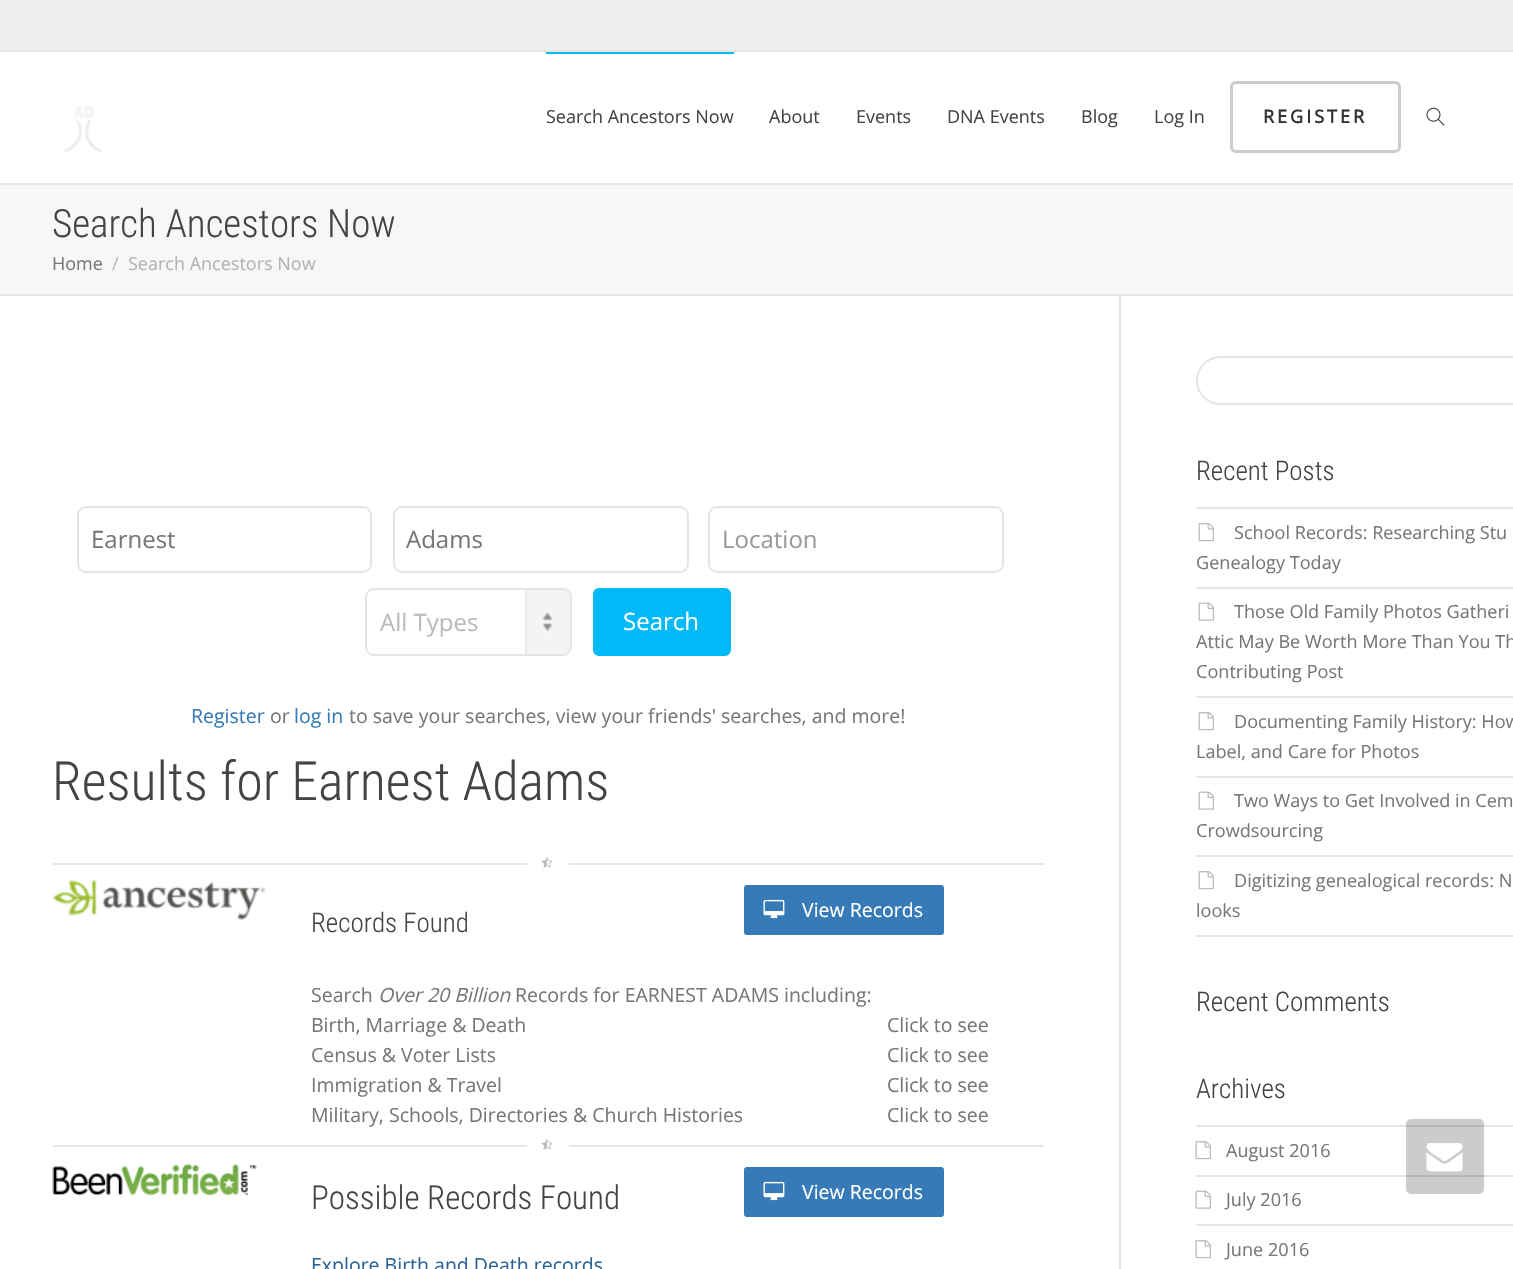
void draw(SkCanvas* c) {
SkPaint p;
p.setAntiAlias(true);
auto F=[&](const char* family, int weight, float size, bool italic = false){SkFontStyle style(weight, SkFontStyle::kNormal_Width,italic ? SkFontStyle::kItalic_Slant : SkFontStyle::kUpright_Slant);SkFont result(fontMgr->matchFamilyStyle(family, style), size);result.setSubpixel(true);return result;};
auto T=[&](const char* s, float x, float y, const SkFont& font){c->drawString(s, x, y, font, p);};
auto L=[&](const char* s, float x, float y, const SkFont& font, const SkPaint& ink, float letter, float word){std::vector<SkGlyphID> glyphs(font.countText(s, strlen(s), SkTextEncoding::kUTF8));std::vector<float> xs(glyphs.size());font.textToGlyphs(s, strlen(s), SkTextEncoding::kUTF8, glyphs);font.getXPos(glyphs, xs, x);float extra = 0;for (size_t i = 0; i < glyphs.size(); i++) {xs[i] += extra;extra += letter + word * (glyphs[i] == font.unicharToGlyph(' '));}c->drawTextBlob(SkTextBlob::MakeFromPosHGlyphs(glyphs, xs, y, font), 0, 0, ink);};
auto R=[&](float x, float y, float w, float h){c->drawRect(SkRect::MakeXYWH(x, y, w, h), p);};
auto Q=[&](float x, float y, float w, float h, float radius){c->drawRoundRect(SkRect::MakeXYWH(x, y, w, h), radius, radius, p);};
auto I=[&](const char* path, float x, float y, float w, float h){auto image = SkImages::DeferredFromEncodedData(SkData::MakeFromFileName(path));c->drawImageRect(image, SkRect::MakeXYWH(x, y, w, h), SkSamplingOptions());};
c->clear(0xffffffff);
p.setColor(0xffeeeeee);
R(0,0,1513,50);
p.setColor(0xffe5e5e5);
R(0,50,1513,2);
R(0,183,1513,2);
I("1.png",63,105,39,48);
p.setColor(0xff00b9f7);
R(546,52,188,2);
auto f1 = F("Open Sans",400,18);
p.setColor(0xff444444);
T("Search Ancestors Now",546,123,f1);
T("About",769,123,f1);
T("Events",856,123,f1);
T("DNA Events",947,123,f1);
T("Blog",1081,123,f1);
T("Log In",1154,123,f1);
p.setStroke(true);
p.setStrokeWidth(3);
p.setColor(0xffcccccc);
c->drawRoundRect(SkRect::MakeXYWH(1231.5,82.5,168,69),4.5,4.5,p);
auto f2 = F("Open Sans",700,18);
p.setStroke(false);
p.setColor(0xff333333);
L("REGISTER",1263,123,f2,p,3,0);
I("2.png",1426,107,19,19);
p.setColor(0xfff7f7f7);
R(0,185,1513,109);
p.setColor(0xffe5e5e5);
R(0,294,1513,2);
auto f3 = F("Roboto Condensed",300,39);
p.setColor(0xff444444);
T("Search Ancestors Now",52,237,f3);
p.setColor(0xff777777);
T("Home",52,270,f1);
p.setColor(0xffb3b3b3);
T("/",112,270,f1);
T("Search Ancestors Now",128,270,f1);
p.setColor(0xffe5e5e5);
R(1119,296,2,973);
p.setStroke(true);
p.setStrokeWidth(2);
c->drawRoundRect(SkRect::MakeXYWH(78,507,293,65),8,8,p);
auto f4 = F("Open Sans",400,24);
p.setStroke(false);
p.setColor(0xff777777);
T("Earnest",91,548,f4);
p.setStroke(true);
p.setColor(0xffe5e5e5);
c->drawRoundRect(SkRect::MakeXYWH(394,507,294,65),8,8,p);
p.setStroke(false);
p.setColor(0xff777777);
T("Adams",406,548,f4);
p.setStroke(true);
p.setColor(0xffe5e5e5);
c->drawRoundRect(SkRect::MakeXYWH(709,507,294,65),8,8,p);
p.setStroke(false);
p.setColor(0xff999999);
T("Location",722,548,f4);
I("3.png",525,588,45,66);
p.setStroke(true);
p.setColor(0xffe5e5e5);
c->drawRoundRect(SkRect::MakeXYWH(366,589,205,66),8,8,p);
p.setStroke(false);
p.setColor(0xffbbbbbb);
T("All Types",380,631,f4);
p.setColor(0xff00b9f7);
c->drawRoundRect(SkRect::MakeXYWH(594,589,136,66),5,5,p);
p.setStroke(true);
c->drawRoundRect(SkRect::MakeXYWH(594,589,136,66),5,5,p);
p.setStroke(false);
p.setColor(0xffffffff);
T("Search",623,630,f4);
auto f5 = F("Open Sans",400,19.5);
p.setColor(0xff367bb7);
T("Register",191,723,f5);
p.setColor(0xff777777);
T("or",270,723,f5);
p.setColor(0xff367bb7);
T("log in",294,723,f5);
p.setColor(0xff777777);
T("to save your searches, view your friends' searches, and more!",349,723,f5);
auto f6 = F("Roboto Condensed",300,54);
p.setColor(0xff444444);
T("Results for Earnest Adams",52,800,f6);
p.setColor(0xffe5e5e5);
R(53,863,991,2);
p.setColor(0xffffffff);
Q(527,849,42,29,3);
I("4.png",541,857,12,11);
I("5.png",52,880,214,40);
p.setColor(0xff367bb7);
c->drawRoundRect(SkRect::MakeXYWH(745,886,198,48),2,2,p);
p.setStroke(true);
c->drawRoundRect(SkRect::MakeXYWH(745,886,198,48),2,2,p);
I("6.png",763,899,22,20);
p.setStroke(false);
p.setColor(0xffffffff);
T("View Records",802,917,f5);
auto f7 = F("Roboto Condensed",300,27);
p.setColor(0xff444444);
T("Records Found",311,932,f7);
p.setColor(0xff777777);
T("Search",311,1002,f5);
auto f8 = F("Open Sans",400,19.5,true);
T("Over 20 Billion",378,1002,f8);
T("Records for EARNEST ADAMS including:",515,1002,f5);
T("Birth, Marriage & Death",311,1032,f5);
T("Click to see",887,1032,f5);
T("Census & Voter Lists",311,1062,f5);
T("Click to see",887,1062,f5);
T("Immigration & Travel",311,1092,f5);
T("Click to see",887,1092,f5);
T("Military, Schools, Directories & Church Histories",311,1122,f5);
T("Click to see",887,1122,f5);
p.setColor(0xffe5e5e5);
R(53,1145,991,2);
p.setColor(0xffffffff);
Q(527,1131,42,29,3);
I("4.png",541,1139,12,11);
I("7.png",52,1164,205,32);
auto f9 = F("Roboto Condensed",300,33);
p.setColor(0xff444444);
T("Possible Records Found",311,1209,f9);
p.setColor(0xff2a6496);
T("Explore Birth and Death records",311,1272,f5);
p.setColor(0xff367bb7);
c->drawRoundRect(SkRect::MakeXYWH(745,1168,198,48),2,2,p);
p.setStroke(true);
c->drawRoundRect(SkRect::MakeXYWH(745,1168,198,48),2,2,p);
I("6.png",763,1181,22,20);
p.setStroke(false);
p.setColor(0xffffffff);
T("View Records",802,1199,f5);
p.setStroke(true);
p.setColor(0xffe5e5e5);
c->drawRoundRect(SkRect::MakeXYWH(1197,357,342,47),23.5,23.5,p);
p.setStroke(false);
p.setColor(0xff444444);
T("Recent Posts",1196,480,f7);
p.setColor(0xffe5e5e5);
R(1196,507,317,2);
R(1196,587,317,2);
I("8.png",1198,523,16,19);
auto f10 = F("Open Sans",400,18.1);
p.setColor(0xff777777);
T("School Records: Researching Stu",1234,539,f10);
T("Genealogy Today",1196,569,f10);
p.setColor(0xffe5e5e5);
R(1196,696,317,2);
I("9.png",1198,602,16,19);
p.setColor(0xff777777);
T("Those Old Family Photos Gatheri",1234,618,f10);
T("Attic May Be Worth More Than You Th",1196,648,f10);
T("Contributing Post",1196,678,f10);
p.setColor(0xffe5e5e5);
R(1196,776,317,2);
I("8.png",1198,712,16,19);
p.setColor(0xff777777);
T("Documenting Family History: How",1234,728,f10);
T("Label, and Care for Photos",1196,758,f10);
p.setColor(0xffe5e5e5);
R(1196,855,317,2);
I("9.png",1198,791,16,19);
p.setColor(0xff777777);
T("Two Ways to Get Involved in Cem",1234,807,f10);
T("Crowdsourcing",1196,837,f10);
p.setColor(0xffe5e5e5);
R(1196,935,317,2);
I("8.png",1198,871,16,19);
p.setColor(0xff777777);
T("Digitizing genealogical records: N",1234,887,f10);
T("looks",1196,917,f10);
p.setColor(0xff444444);
T("Recent Comments",1196,1011,f7);
T("Archives",1196,1098,f7);
p.setColor(0xffe5e5e5);
R(1196,1125,317,2);
R(1196,1175,317,2);
I("8.png",1195,1141,16,19);
p.setColor(0xff777777);
T("August 2016",1226,1157,f10);
p.setColor(0xffe5e5e5);
R(1196,1224,317,2);
I("9.png",1195,1190,16,19);
p.setColor(0xff777777);
T("July 2016",1226,1206,f10);
I("8.png",1195,1240,16,19);
T("June 2016",1226,1256,f10);
p.setColor(0x33000000);
Q(1406,1119,78,75,5);
I("10.png",1426,1143,37,29);
}
